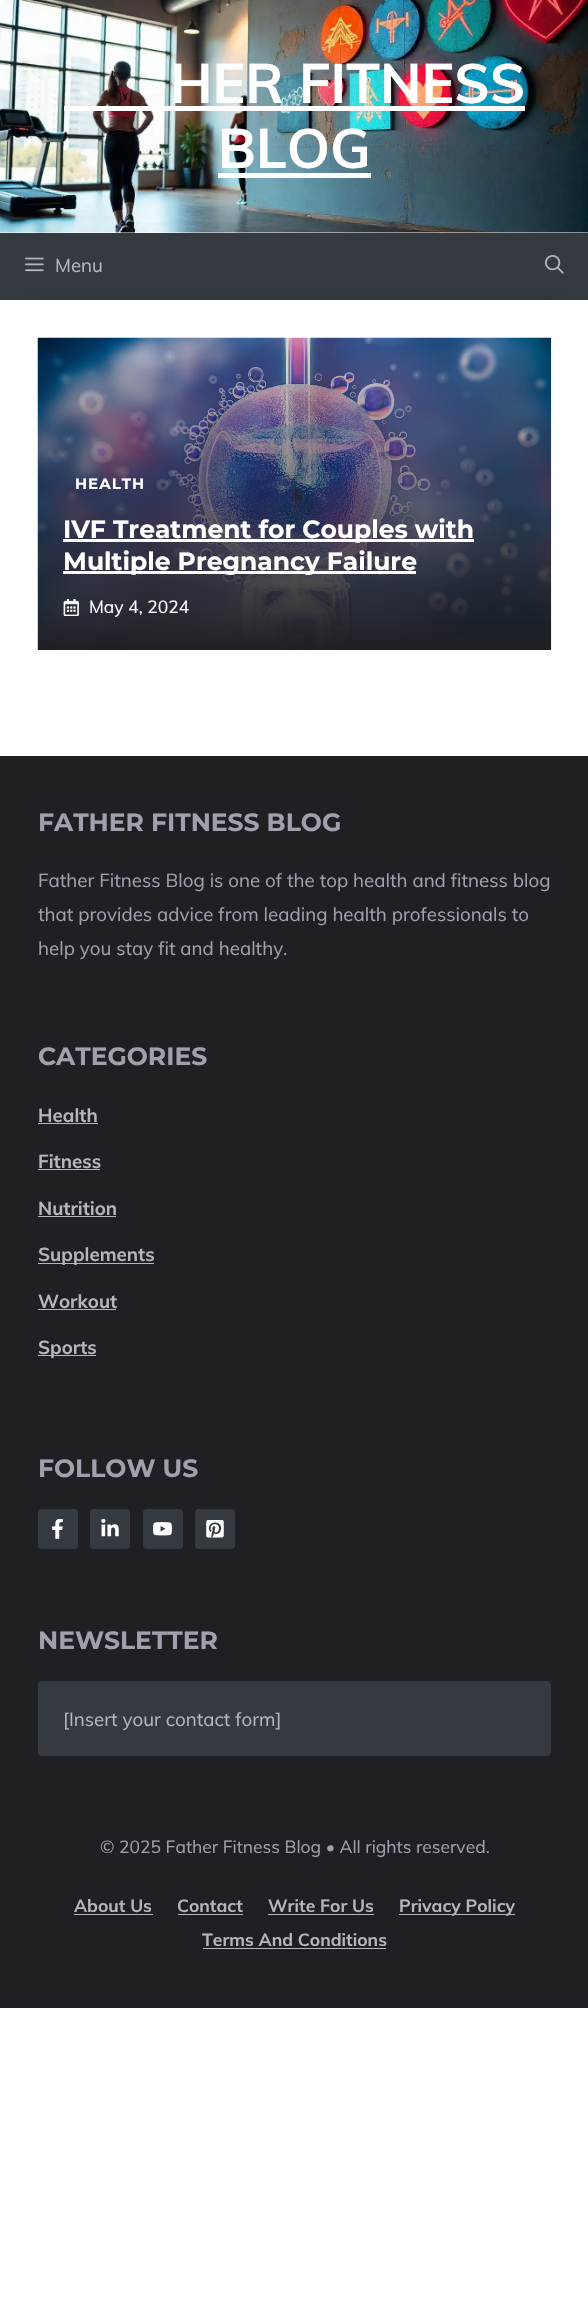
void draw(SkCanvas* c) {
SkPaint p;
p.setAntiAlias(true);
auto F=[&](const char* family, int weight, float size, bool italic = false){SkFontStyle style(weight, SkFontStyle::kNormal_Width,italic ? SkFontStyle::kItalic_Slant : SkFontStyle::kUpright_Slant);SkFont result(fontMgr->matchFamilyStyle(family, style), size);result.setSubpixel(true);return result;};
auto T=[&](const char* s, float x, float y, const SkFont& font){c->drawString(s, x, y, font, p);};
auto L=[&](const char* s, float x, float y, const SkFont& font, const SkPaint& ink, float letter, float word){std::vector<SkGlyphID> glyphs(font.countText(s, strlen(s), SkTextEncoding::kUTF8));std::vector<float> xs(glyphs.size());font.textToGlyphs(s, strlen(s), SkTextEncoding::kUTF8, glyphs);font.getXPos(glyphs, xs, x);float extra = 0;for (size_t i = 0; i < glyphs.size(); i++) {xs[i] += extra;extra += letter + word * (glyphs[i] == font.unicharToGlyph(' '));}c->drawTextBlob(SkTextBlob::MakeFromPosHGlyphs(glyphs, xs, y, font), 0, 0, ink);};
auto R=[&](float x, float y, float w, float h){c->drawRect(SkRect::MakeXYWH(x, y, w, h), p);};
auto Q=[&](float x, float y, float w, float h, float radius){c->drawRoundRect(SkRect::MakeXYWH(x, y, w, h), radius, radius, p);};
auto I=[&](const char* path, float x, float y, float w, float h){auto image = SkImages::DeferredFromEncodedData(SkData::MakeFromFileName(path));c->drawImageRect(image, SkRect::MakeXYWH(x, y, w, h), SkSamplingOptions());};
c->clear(0xffffffff);
I("1.png",0,0,588,233);
auto f1 = F("Muli",700,55);
p.setColor(0xffffffff);
T("HER FITNESS",170,103,f1);
R(64,106,461,5);
T("BLOG",218,168,f1);
R(218,173,153,5);
p.setColor(0xff343a40);
R(0,233,588,67);
I("2.png",25,257,19,15);
auto f2 = F("Muli",400,18.75);
p.setColor(0xffb5b7bf);
T("Menu",55,272,f2);
I("3.png",545,255,19,19);
p.setColor(0x4d000000);
p.setMaskFilter(SkMaskFilter::MakeBlur(kNormal_SkBlurStyle, 12.5));
c->drawRect(SkRect::MakeXYWH(13,313,563,431),p);
p.setMaskFilter(nullptr);
p.setColor(0xffffffff);
R(0,300,588,456);
I("4.png",37,337,515,313);
auto f3 = F("Montserrat",700,15);
L("HEALTH",75,489,f3,p,1,0);
R(63,539,411,3);
auto f4 = F("Montserrat",700,25);
T("IVF Treatment for Couples with",63,538,f4);
R(63,571,353,3);
T("Multiple Pregnancy Failure",63,570,f4);
I("5.png",63,599,16,17);
auto f5 = F("Muli",400,17.5);
T("May 4, 2024",89,613,f5);
p.setColor(0xff1f2024);
R(0,756,588,1252);
p.setColor(0xffa0a1ad);
T("FATHER FITNESS BLOG",38,831,f4);
T("Father Fitness Blog is one of the top health and fitness blog",38,887,f2);
T("that provides advice from leading health professionals to",38,921,f2);
T("help you stay fit and healthy.",38,955,f2);
T("CATEGORIES",38,1065,f4);
auto f6 = F("Muli",700,18.75);
p.setColor(0xffb5b7bf);
T("Health",38,1122,f6);
R(38,1123,60,1);
T("Fitness",38,1168,f6);
R(38,1169,62,1);
T("Nutrition",38,1215,f6);
R(38,1216,78,1);
R(38,1263,116,1);
T("Supplements",38,1261,f6);
T("Workout",38,1308,f6);
R(38,1309,78,1);
R(38,1355,58,1);
T("Sports",38,1354,f6);
p.setColor(0xffa0a1ad);
T("FOLLOW US",38,1477,f4);
p.setColor(0xff343a40);
Q(38,1509,40,40,4);
I("6.png",52,1519,11,20);
Q(90,1509,40,40,4);
I("7.png",101,1519,18,18);
Q(143,1509,40,40,4);
I("8.png",153,1522,19,14);
Q(195,1509,40,40,4);
I("9.png",206,1520,18,18);
p.setColor(0xffa0a1ad);
T("NEWSLETTER",38,1649,f4);
p.setColor(0xff343a40);
Q(38,1681,513,75,4);
p.setColor(0xffb5b7bf);
T("[Insert your contact form]",63,1726,f2);
p.setColor(0xffa0a1ad);
T("© 2025 Father Fitness Blog • All rights reserved.",100,1853,f5);
auto f7 = F("Muli",700,17.5);
p.setColor(0xffb5b7bf);
T("About Us",74,1912,f7);
R(74,1914,79,1);
T("Contact",177,1912,f7);
R(178,1914,65,1);
T("Write For Us",268,1912,f7);
R(268,1914,106,1);
R(399,1914,116,1);
T("Privacy Policy",399,1912,f7);
T("Terms And Conditions",202,1946,f7);
R(203,1948,183,1);
}
